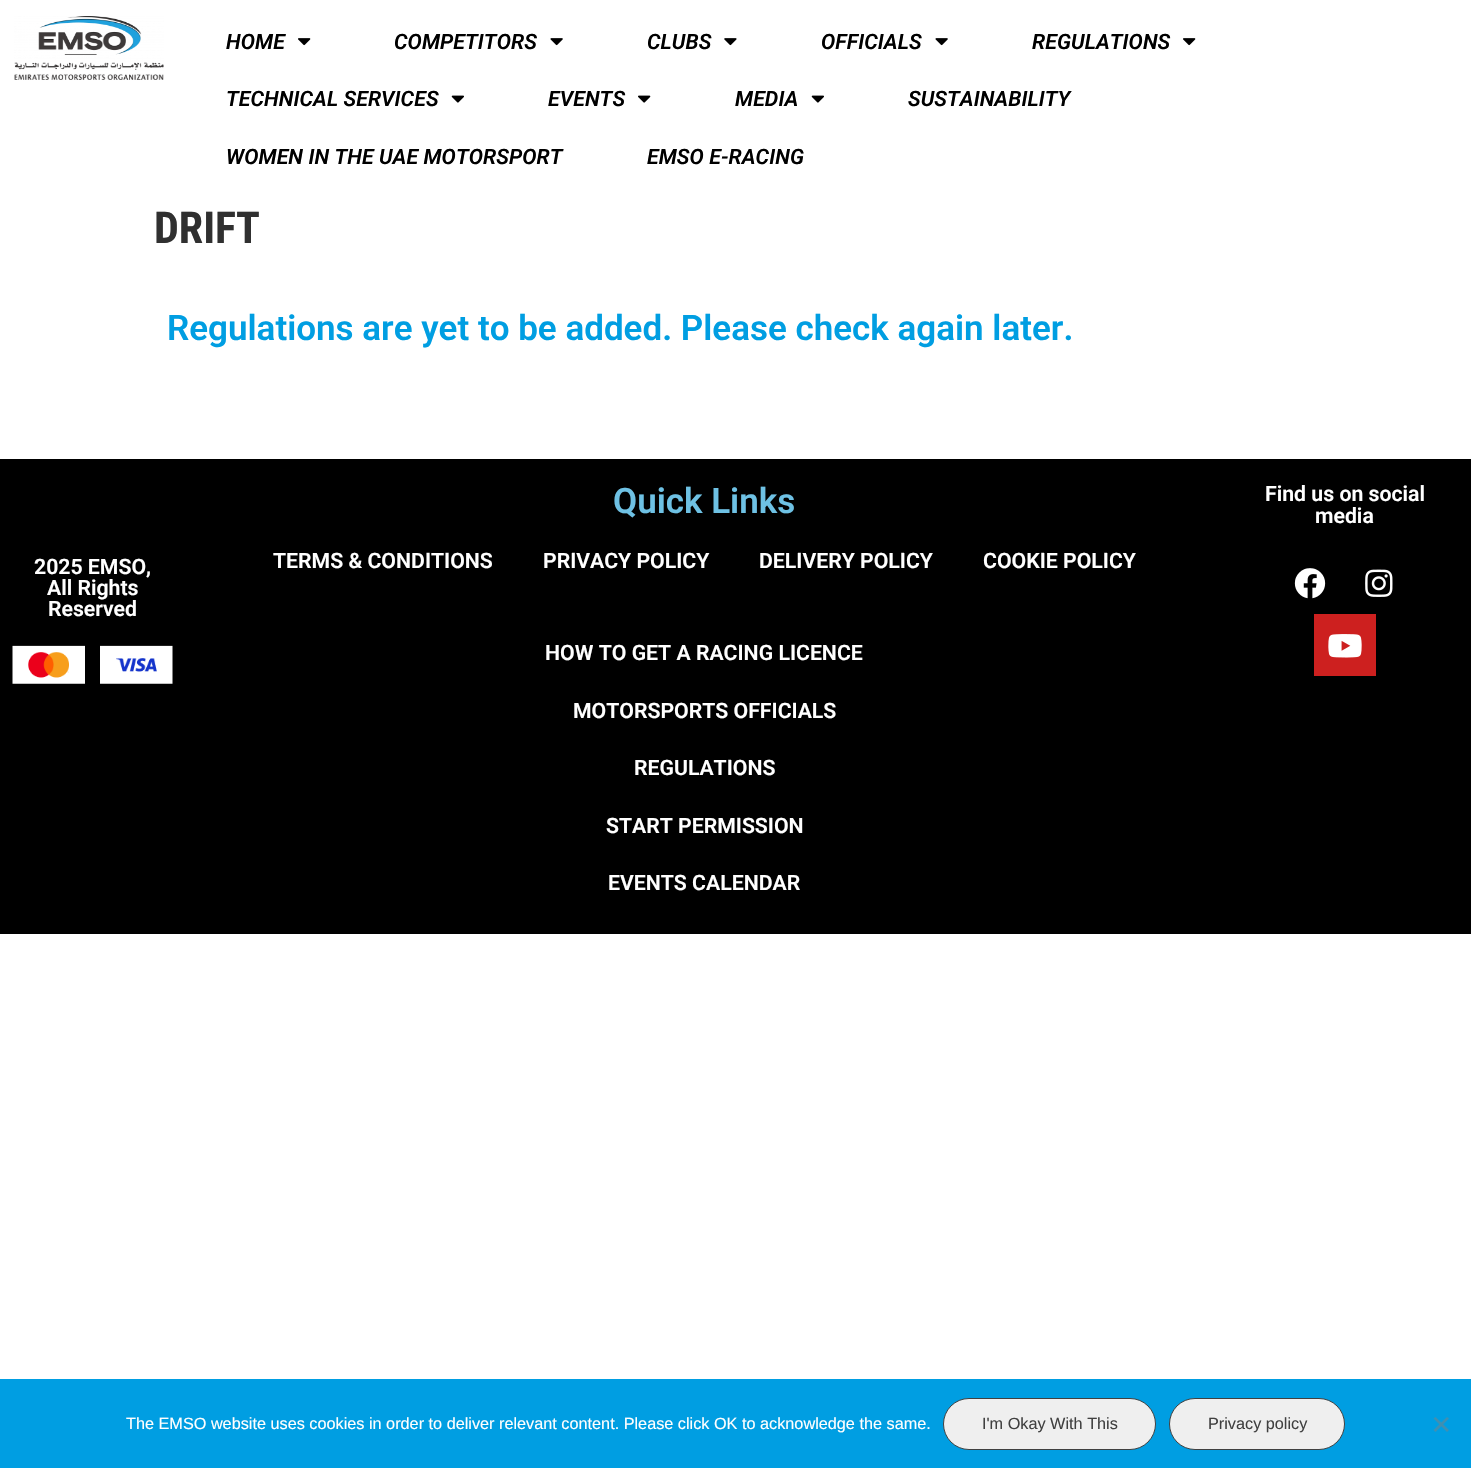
void draw(SkCanvas* c) {
SkPaint p;
p.setAntiAlias(true);
auto F=[&](const char* family, int weight, float size, bool italic = false){SkFontStyle style(weight, SkFontStyle::kNormal_Width,italic ? SkFontStyle::kItalic_Slant : SkFontStyle::kUpright_Slant);SkFont result(fontMgr->matchFamilyStyle(family, style), size);result.setSubpixel(true);return result;};
auto T=[&](const char* s, float x, float y, const SkFont& font){c->drawString(s, x, y, font, p);};
auto L=[&](const char* s, float x, float y, const SkFont& font, const SkPaint& ink, float letter, float word){std::vector<SkGlyphID> glyphs(font.countText(s, strlen(s), SkTextEncoding::kUTF8));std::vector<float> xs(glyphs.size());font.textToGlyphs(s, strlen(s), SkTextEncoding::kUTF8, glyphs);font.getXPos(glyphs, xs, x);float extra = 0;for (size_t i = 0; i < glyphs.size(); i++) {xs[i] += extra;extra += letter + word * (glyphs[i] == font.unicharToGlyph(' '));}c->drawTextBlob(SkTextBlob::MakeFromPosHGlyphs(glyphs, xs, y, font), 0, 0, ink);};
auto R=[&](float x, float y, float w, float h){c->drawRect(SkRect::MakeXYWH(x, y, w, h), p);};
auto I=[&](const char* path, float x, float y, float w, float h){auto image = SkImages::DeferredFromEncodedData(SkData::MakeFromFileName(path));c->drawImageRect(image, SkRect::MakeXYWH(x, y, w, h), SkSamplingOptions());};
auto P=[&](const char* data, bool evenOdd = false){SkPath result = *SkParsePath::FromSVGString(data);if (evenOdd) result.setFillType(SkPathFillType::kEvenOdd);return result;};
c->clear(0xffffffff);
I("1.png",14,16,150,64);
auto f1 = F("Roboto",600,21.25,true);
p.setColor(0xff000000);
L("HOME",226,49,f1,p,.1,0);
I("2.png",298,38,13,8);
L("COMPETITORS",394,49,f1,p,.1,0);
I("3.png",550,38,13,8);
L("CLUBS",647,49,f1,p,.1,0);
I("4.png",724,38,13,8);
L("OFFICIALS",821,49,f1,p,.1,0);
I("3.png",935,38,13,8);
L("REGULATIONS",1032,49,f1,p,.1,0);
I("2.png",1183,38,13,8);
L("TECHNICAL SERVICES",226,106,f1,p,.1,0);
I("5.png",451,95,13,8);
L("EVENTS",548,106,f1,p,.1,0);
I("6.png",638,95,13,8);
L("MEDIA",735,106,f1,p,.1,0);
I("5.png",811,95,13,8);
L("SUSTAINABILITY",908,106,f1,p,.1,0);
L("WOMEN IN THE UAE MOTORSPORT",226,164,f1,p,.1,0);
L("EMSO E-RACING",647,164,f1,p,.1,0);
auto f2 = F("Roboto Condensed",700,44);
p.setColor(0xff303030);
T("DRIFT",154,243,f2);
auto f3 = F("Roboto",600,35);
p.setColor(0xff009ee2);
T("Regulations are yet to be added. Please check again later.",167,340,f3);
p.setColor(0xff000000);
R(0,459,1471,475);
auto f4 = F("Roboto",600,21.25);
p.setColor(0xffffffff);
T("2025 EMSO,",34,574,f4);
T("All Rights",47,595,f4);
T("Reserved",48,616,f4);
I("7.png",12,645,161,39);
p.setColor(0xff6ec1e4);
T("Quick Links",613,513,f3);
p.setColor(0xffffffff);
T("TERMS & CONDITIONS",273,568,f4);
T("PRIVACY POLICY",543,568,f4);
T("DELIVERY POLICY",759,568,f4);
T("COOKIE POLICY",983,568,f4);
T("HOW TO GET A RACING LICENCE",545,660,f4);
T("MOTORSPORTS OFFICIALS",573,718,f4);
T("REGULATIONS",634,775,f4);
T("START PERMISSION",606,833,f4);
T("EVENTS CALENDAR",608,890,f4);
T("Find us on social",1265,501,f4);
T("media",1315,523,f4);
I("8.png",1294,568,32,31);
I("9.png",1365,569,28,28);
p.setColor(0xffcd201f);
R(1314,614,62,62);
I("10.png",1328,634,34,24);
p.setColor(0xff009ee2);
R(0,1379,1471,89);
auto f5 = F("Liberation Sans",400,16.25);
p.setColor(0xffffffff);
T("The EMSO website uses cookies in order to deliver relevant content. Please click OK to acknowledge the same.",126,1429,f5);
p.setColor(0xffefefef);
c->drawRoundRect(SkRect::MakeXYWH(943.5,1398.5,212,51),25.5,25.5,p);
p.setStroke(true);
p.setStrokeWidth(1);
p.setColor(0xff404040);
c->drawRoundRect(SkRect::MakeXYWH(943.5,1398.5,212,51),25.5,25.5,p);
p.setStroke(false);
T("I'm Okay With This",982,1429,f5);
p.setColor(0xffefefef);
c->drawRoundRect(SkRect::MakeXYWH(1169.5,1398.5,175,51),25.5,25.5,p);
p.setStroke(true);
p.setColor(0xff404040);
c->drawRoundRect(SkRect::MakeXYWH(1169.5,1398.5,175,51),25.5,25.5,p);
p.setStroke(false);
T("Privacy policy",1208,1429,f5);
p.setColor(0xff408fb1);
c->drawPath(P("M1447 1417l2 1.5l-13.5 13.5l-2-2z"),p);
c->drawPath(P("M1433.5 1418.5l2-1.5l13.5 13l-2 2z"),p);
}
